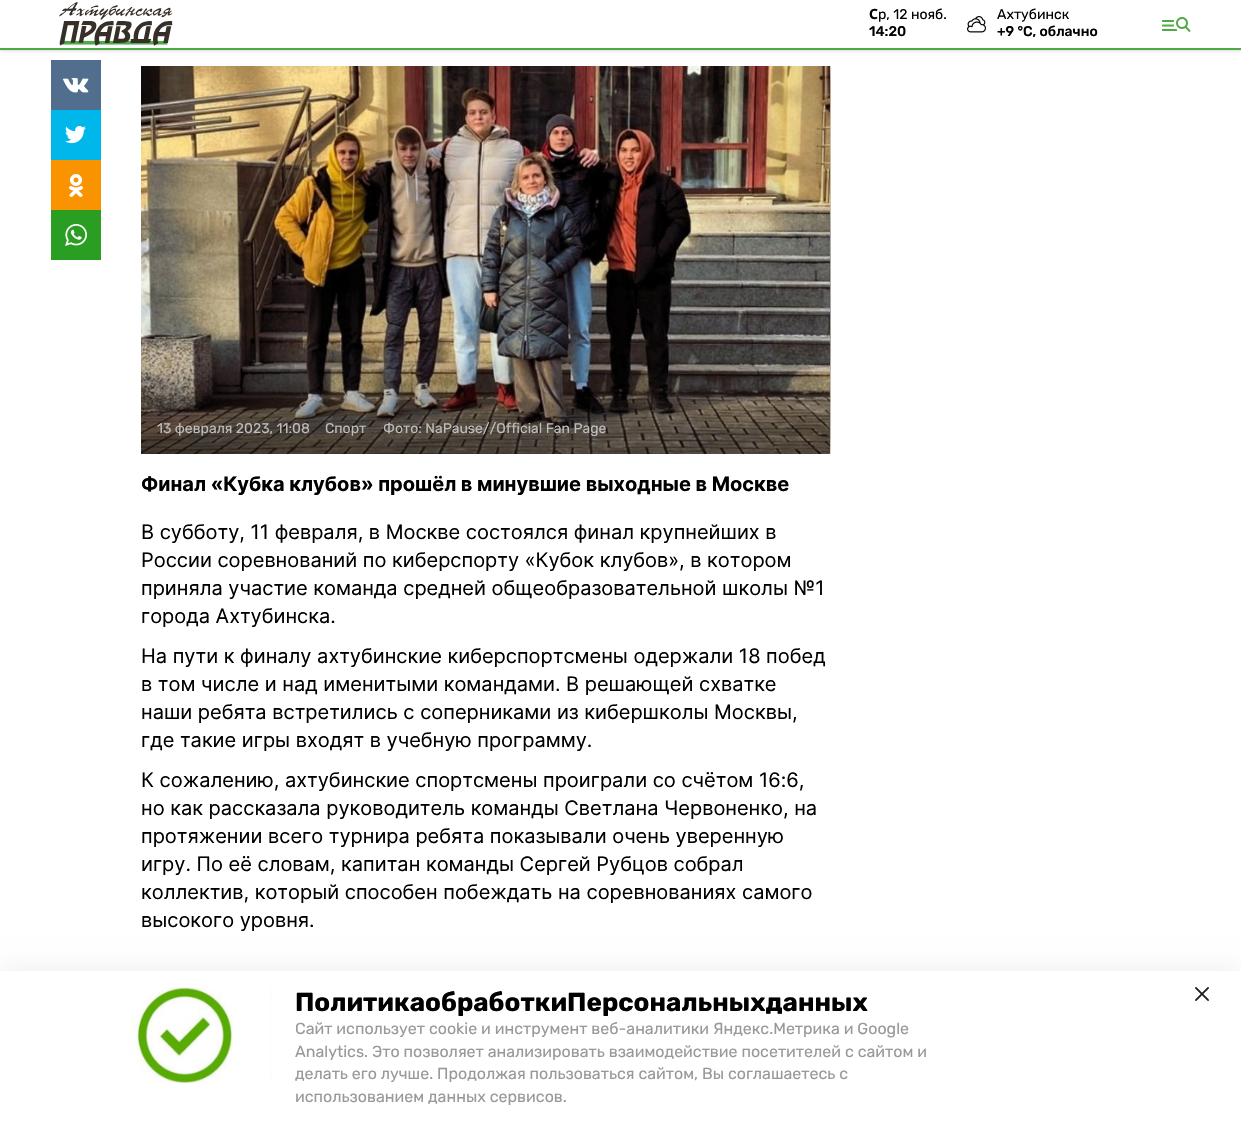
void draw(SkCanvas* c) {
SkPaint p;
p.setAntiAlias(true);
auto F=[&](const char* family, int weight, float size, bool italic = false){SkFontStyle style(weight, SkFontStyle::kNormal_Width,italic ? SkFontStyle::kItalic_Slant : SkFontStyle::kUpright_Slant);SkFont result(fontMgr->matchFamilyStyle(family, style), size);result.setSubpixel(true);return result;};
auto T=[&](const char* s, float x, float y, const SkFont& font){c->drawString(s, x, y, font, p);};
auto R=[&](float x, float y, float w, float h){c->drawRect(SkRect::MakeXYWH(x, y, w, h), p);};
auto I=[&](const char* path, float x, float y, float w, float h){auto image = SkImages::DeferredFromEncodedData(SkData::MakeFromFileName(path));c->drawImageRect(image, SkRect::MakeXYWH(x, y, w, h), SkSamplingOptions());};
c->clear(0xffffffff);
p.setColor(0x1a000000);
p.setMaskFilter(SkMaskFilter::MakeBlur(kNormal_SkBlurStyle, 1));
c->drawRect(SkRect::MakeXYWH(1,2,1239,48),p);
p.setMaskFilter(nullptr);
p.setMaskFilter(SkMaskFilter::MakeBlur(kNormal_SkBlurStyle, 1.5));
c->drawRect(SkRect::MakeXYWH(0,1,1241,50),p);
p.setMaskFilter(nullptr);
p.setColor(0xffffffff);
R(0,0,1241,48);
p.setColor(0xff50a947);
R(0,48,1241,2);
I("1.png",59,2,114,44);
auto f1 = F("Noto Sans",700,14);
p.setColor(0xff000000);
T("С",869,19,f1);
auto f2 = F("Rubik",400,14);
T("р, 12 нояб.",878,19,f2);
auto f3 = F("Rubik",500,14);
T("14:20",869,36,f3);
I("2.png",967,16,19,17);
T("Ахтубинск",997,19,f2);
T("+9 °С, облачно",997,36,f3);
I("3.png",1162,17,29,15);
p.setColor(0xff526e8f);
R(51,60,50,50);
I("4.png",63,78,26,15);
p.setColor(0xff00b7ec);
R(51,110,50,50);
I("5.png",65,126,21,18);
p.setColor(0xfff99400);
R(51,160,50,50);
I("6.png",69,174,14,23);
p.setColor(0xff2a9e22);
R(51,210,50,50);
I("7.png",65,224,22,22);
p.setColor(0xfff7f7f7);
R(830,66,1,388);
I("8.png",141,66,689,388);
I("9.png",830,66,1,388);
p.setColor(0xffbdbdbd);
T("13 февраля 2023, 11:08",157,433,f2);
T("Спорт",325,433,f2);
T("Фото: NaPause//Official Fan Page",383,433,f2);
auto f4 = F("Inter",700,20);
p.setColor(0xff000000);
T("Финал «Кубка клубов» прошёл в минувшие выходные в Москве",141,491,f4);
auto f5 = F("Inter",400,20);
T("В субботу, 11 февраля, в Москве состоялся финал крупнейших в",141,539,f5);
T("России соревнований по киберспорту «Кубок клубов», в котором",141,567,f5);
T("приняла участие команда средней общеобразовательной школы №1",141,595,f5);
T("города Ахтубинска.",141,623,f5);
T("На пути к финалу ахтубинские киберспортсмены одержали 18 побед",141,663,f5);
T("в том числе и над именитыми командами. В решающей схватке",141,691,f5);
T("наши ребята встретились с соперниками из кибершколы Москвы,",141,719,f5);
T("где такие игры входят в учебную программу.",141,747,f5);
T("К сожалению, ахтубинские спортсмены проиграли со счётом 16:6,",141,787,f5);
T("но как рассказала руководитель команды Светлана Червоненко, на",141,815,f5);
T("протяжении всего турнира ребята показывали очень уверенную",141,843,f5);
T("игру. По её словам, капитан команды Сергей Рубцов собрал",141,871,f5);
T("коллектив, который способен побеждать на соревнованиях самого",141,899,f5);
T("высокого уровня.",141,927,f5);
p.setColor(0x0d000000);
p.setMaskFilter(SkMaskFilter::MakeBlur(kNormal_SkBlurStyle, 10));
c->drawRect(SkRect::MakeXYWH(0,966,1241,153),p);
p.setMaskFilter(nullptr);
p.setColor(0xffffffff);
R(0,971,1241,153);
p.setColor(0xfff7f7f7);
R(270,987,1,96);
I("10.png",101,987,169,96);
I("11.png",270,987,1,96);
auto f6 = F("Rubik",700,26);
p.setColor(0xff000000);
T("Политика обработки Персональных данных",295,1011,f6);
auto f7 = F("Rubik",400,16);
p.setColor(0xff999999);
T("Сайт использует cookie и инструмент веб-аналитики Яндекс.Метрика и Google",295,1034,f7);
T("Analytics. Это позволяет анализировать взаимодействие посетителей с сайтом и",295,1057,f7);
T("делать его лучше. Продолжая пользоваться сайтом, Вы соглашаетесь с",295,1079,f7);
T("использованием данных сервисов.",295,1102,f7);
I("12.png",1195,987,14,14);
}
